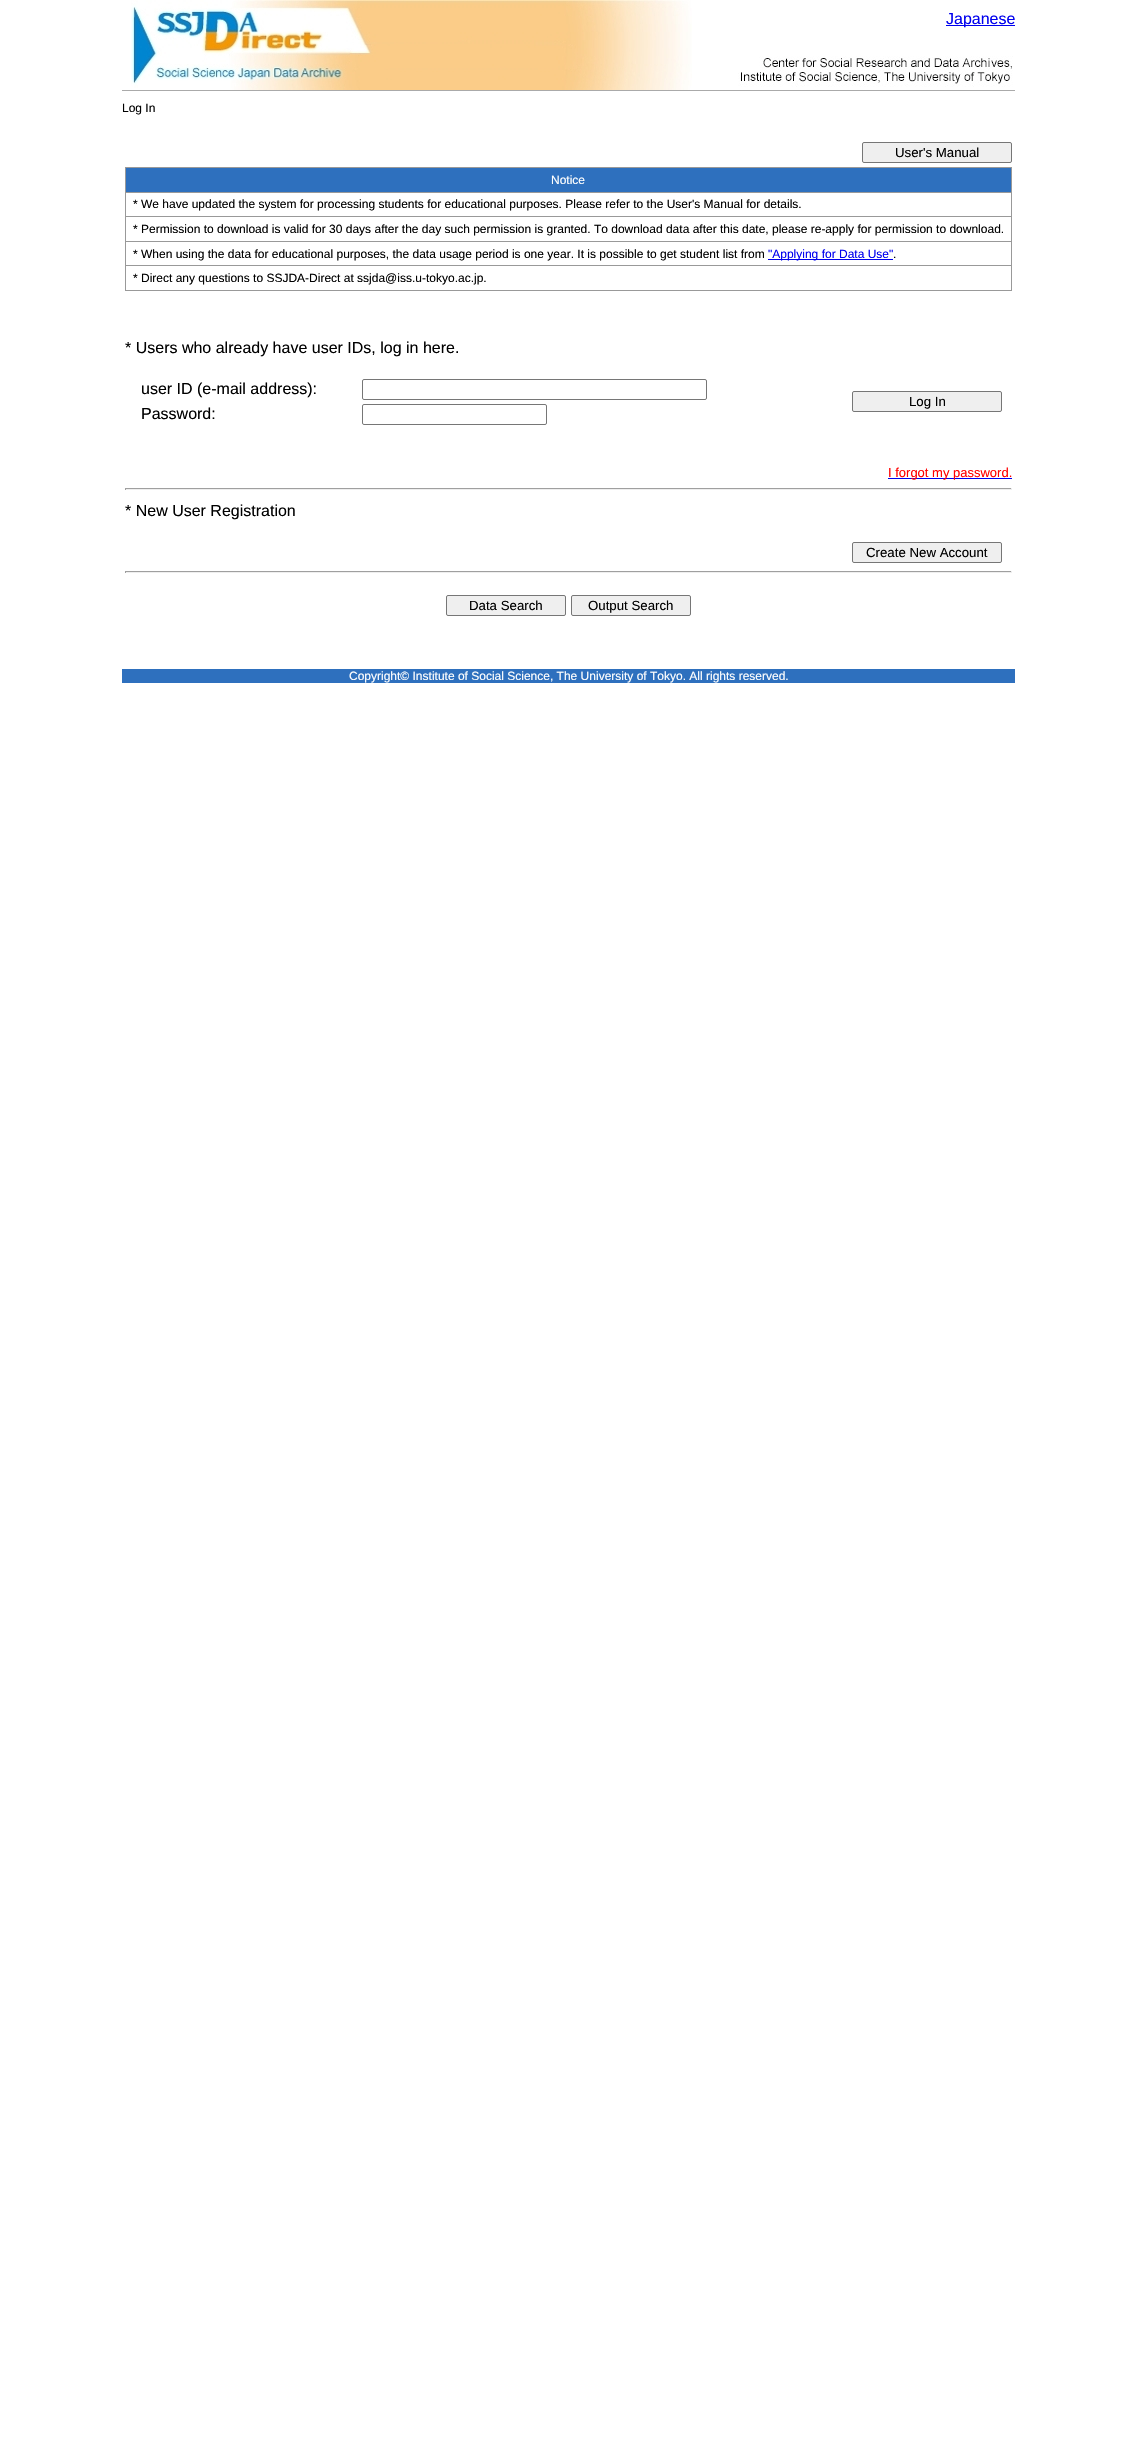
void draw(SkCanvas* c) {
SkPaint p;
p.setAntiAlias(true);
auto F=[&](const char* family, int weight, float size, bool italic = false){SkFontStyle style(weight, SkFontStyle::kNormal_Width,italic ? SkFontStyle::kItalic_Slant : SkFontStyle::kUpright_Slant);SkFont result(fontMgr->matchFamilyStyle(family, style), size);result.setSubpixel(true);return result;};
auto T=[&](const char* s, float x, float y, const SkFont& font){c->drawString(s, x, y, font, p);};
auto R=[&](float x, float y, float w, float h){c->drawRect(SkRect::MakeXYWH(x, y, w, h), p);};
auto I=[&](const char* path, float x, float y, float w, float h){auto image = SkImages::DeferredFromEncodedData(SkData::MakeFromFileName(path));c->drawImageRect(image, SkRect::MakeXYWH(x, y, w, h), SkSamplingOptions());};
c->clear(0xffffffff);
I("1.png",131,0,561,90);
I("2.png",738,56,275,31);
p.setColor(0xff0000ee);
R(946,25,69,1);
auto f1 = F("Liberation Sans",400,16);
T("Japanese",946,24,f1);
p.setColor(0xffaaaaaa);
R(122,90,893,1);
auto f2 = F("Liberation Sans",400,12);
p.setColor(0xff000000);
T("Log In",122,112,f2);
p.setColor(0xffefefef);
c->drawRoundRect(SkRect::MakeXYWH(862.5,142.5,149,20),1.5,1.5,p);
p.setStroke(true);
p.setStrokeWidth(1);
p.setColor(0xff767676);
c->drawRoundRect(SkRect::MakeXYWH(862.5,142.5,149,20),1.5,1.5,p);
auto f3 = F("Liberation Sans",400,13.25);
p.setStroke(false);
p.setColor(0xff000000);
T("User's Manual",895,157,f3);
p.setColor(0xff2e70be);
R(126,168,885,24);
p.setColor(0xff999999);
R(125,167,887,1);
R(125,192,887,1);
R(125,216,887,1);
R(125,241,887,1);
R(125,265,887,1);
R(1011,265,1,26);
R(1011,241,1,25);
R(1011,216,1,26);
R(1011,192,1,25);
R(1011,167,1,26);
R(125,290,887,1);
R(125,265,1,26);
R(125,241,1,25);
R(125,216,1,26);
R(125,192,1,25);
R(125,167,1,26);
p.setColor(0xffffffff);
T("Notice",551,184,f2);
p.setColor(0xff000000);
T("* We have updated the system for processing students for educational purposes. Please refer to the User's Manual for details.",133,208,f2);
T("* Permission to download is valid for 30 days after the day such permission is granted. To download data after this date, please re-apply for permission to download.",133,233,f2);
T("* When using the data for educational purposes, the data usage period is one year. It is possible to get student list from",133,258,f2);
p.setColor(0xff0000ee);
R(768,259,125,1);
T("\"Applying for Data Use\"",768,258,f2);
p.setColor(0xff000000);
T(".",893,258,f2);
T("* Direct any questions to SSJDA-Direct at ssjda@iss.u-tokyo.ac.jp.",133,282,f2);
T("* Users who already have user IDs, log in here.",125,353,f1);
T("user ID (e-mail address):",141,394,f1);
p.setStroke(true);
p.setColor(0xff767676);
c->drawRoundRect(SkRect::MakeXYWH(362.5,379.5,344,20),1.5,1.5,p);
p.setStroke(false);
p.setColor(0xffefefef);
c->drawRoundRect(SkRect::MakeXYWH(852.5,391.5,149,20),1.5,1.5,p);
p.setStroke(true);
p.setColor(0xff767676);
c->drawRoundRect(SkRect::MakeXYWH(852.5,391.5,149,20),1.5,1.5,p);
p.setStroke(false);
p.setColor(0xff000000);
T("Log In",909,406,f3);
T("Password:",141,419,f1);
p.setStroke(true);
p.setColor(0xff767676);
c->drawRoundRect(SkRect::MakeXYWH(362.5,404.5,184,20),1.5,1.5,p);
p.setStroke(false);
p.setColor(0xff0000ee);
R(888,478,124,1);
auto f4 = F("Liberation Sans",400,13);
p.setColor(0xffff0000);
T("I forgot my password.",888,477,f4);
p.setColor(0xff9f9f9f);
R(125,488,887,1);
p.setColor(0xffeeeeee);
R(1011,488,1,2);
R(125,489,887,1);
p.setColor(0xff9f9f9f);
R(125,488,1,2);
p.setColor(0xff000000);
T("* New User Registration",125,516,f1);
p.setColor(0xffefefef);
c->drawRoundRect(SkRect::MakeXYWH(852.5,542.5,149,20),1.5,1.5,p);
p.setStroke(true);
p.setColor(0xff767676);
c->drawRoundRect(SkRect::MakeXYWH(852.5,542.5,149,20),1.5,1.5,p);
p.setStroke(false);
p.setColor(0xff000000);
T("Create New Account",866,557,f3);
p.setColor(0xff9f9f9f);
R(125,571,887,1);
p.setColor(0xffeeeeee);
R(1011,571,1,2);
R(125,572,887,1);
p.setColor(0xff9f9f9f);
R(125,571,1,2);
p.setColor(0xffefefef);
c->drawRoundRect(SkRect::MakeXYWH(446.5,595.5,119,20),1.5,1.5,p);
p.setStroke(true);
p.setColor(0xff767676);
c->drawRoundRect(SkRect::MakeXYWH(446.5,595.5,119,20),1.5,1.5,p);
p.setStroke(false);
p.setColor(0xff000000);
T("Data Search",469,610,f3);
p.setColor(0xffefefef);
c->drawRoundRect(SkRect::MakeXYWH(571.5,595.5,119,20),1.5,1.5,p);
p.setStroke(true);
p.setColor(0xff767676);
c->drawRoundRect(SkRect::MakeXYWH(571.5,595.5,119,20),1.5,1.5,p);
p.setStroke(false);
p.setColor(0xff000000);
T("Output Search",588,610,f3);
p.setColor(0xff2e70be);
R(122,669,893,14);
p.setColor(0xffffffff);
T("Copyright© Institute of Social Science, The University of Tokyo. All rights reserved.",349,680,f2);
}
